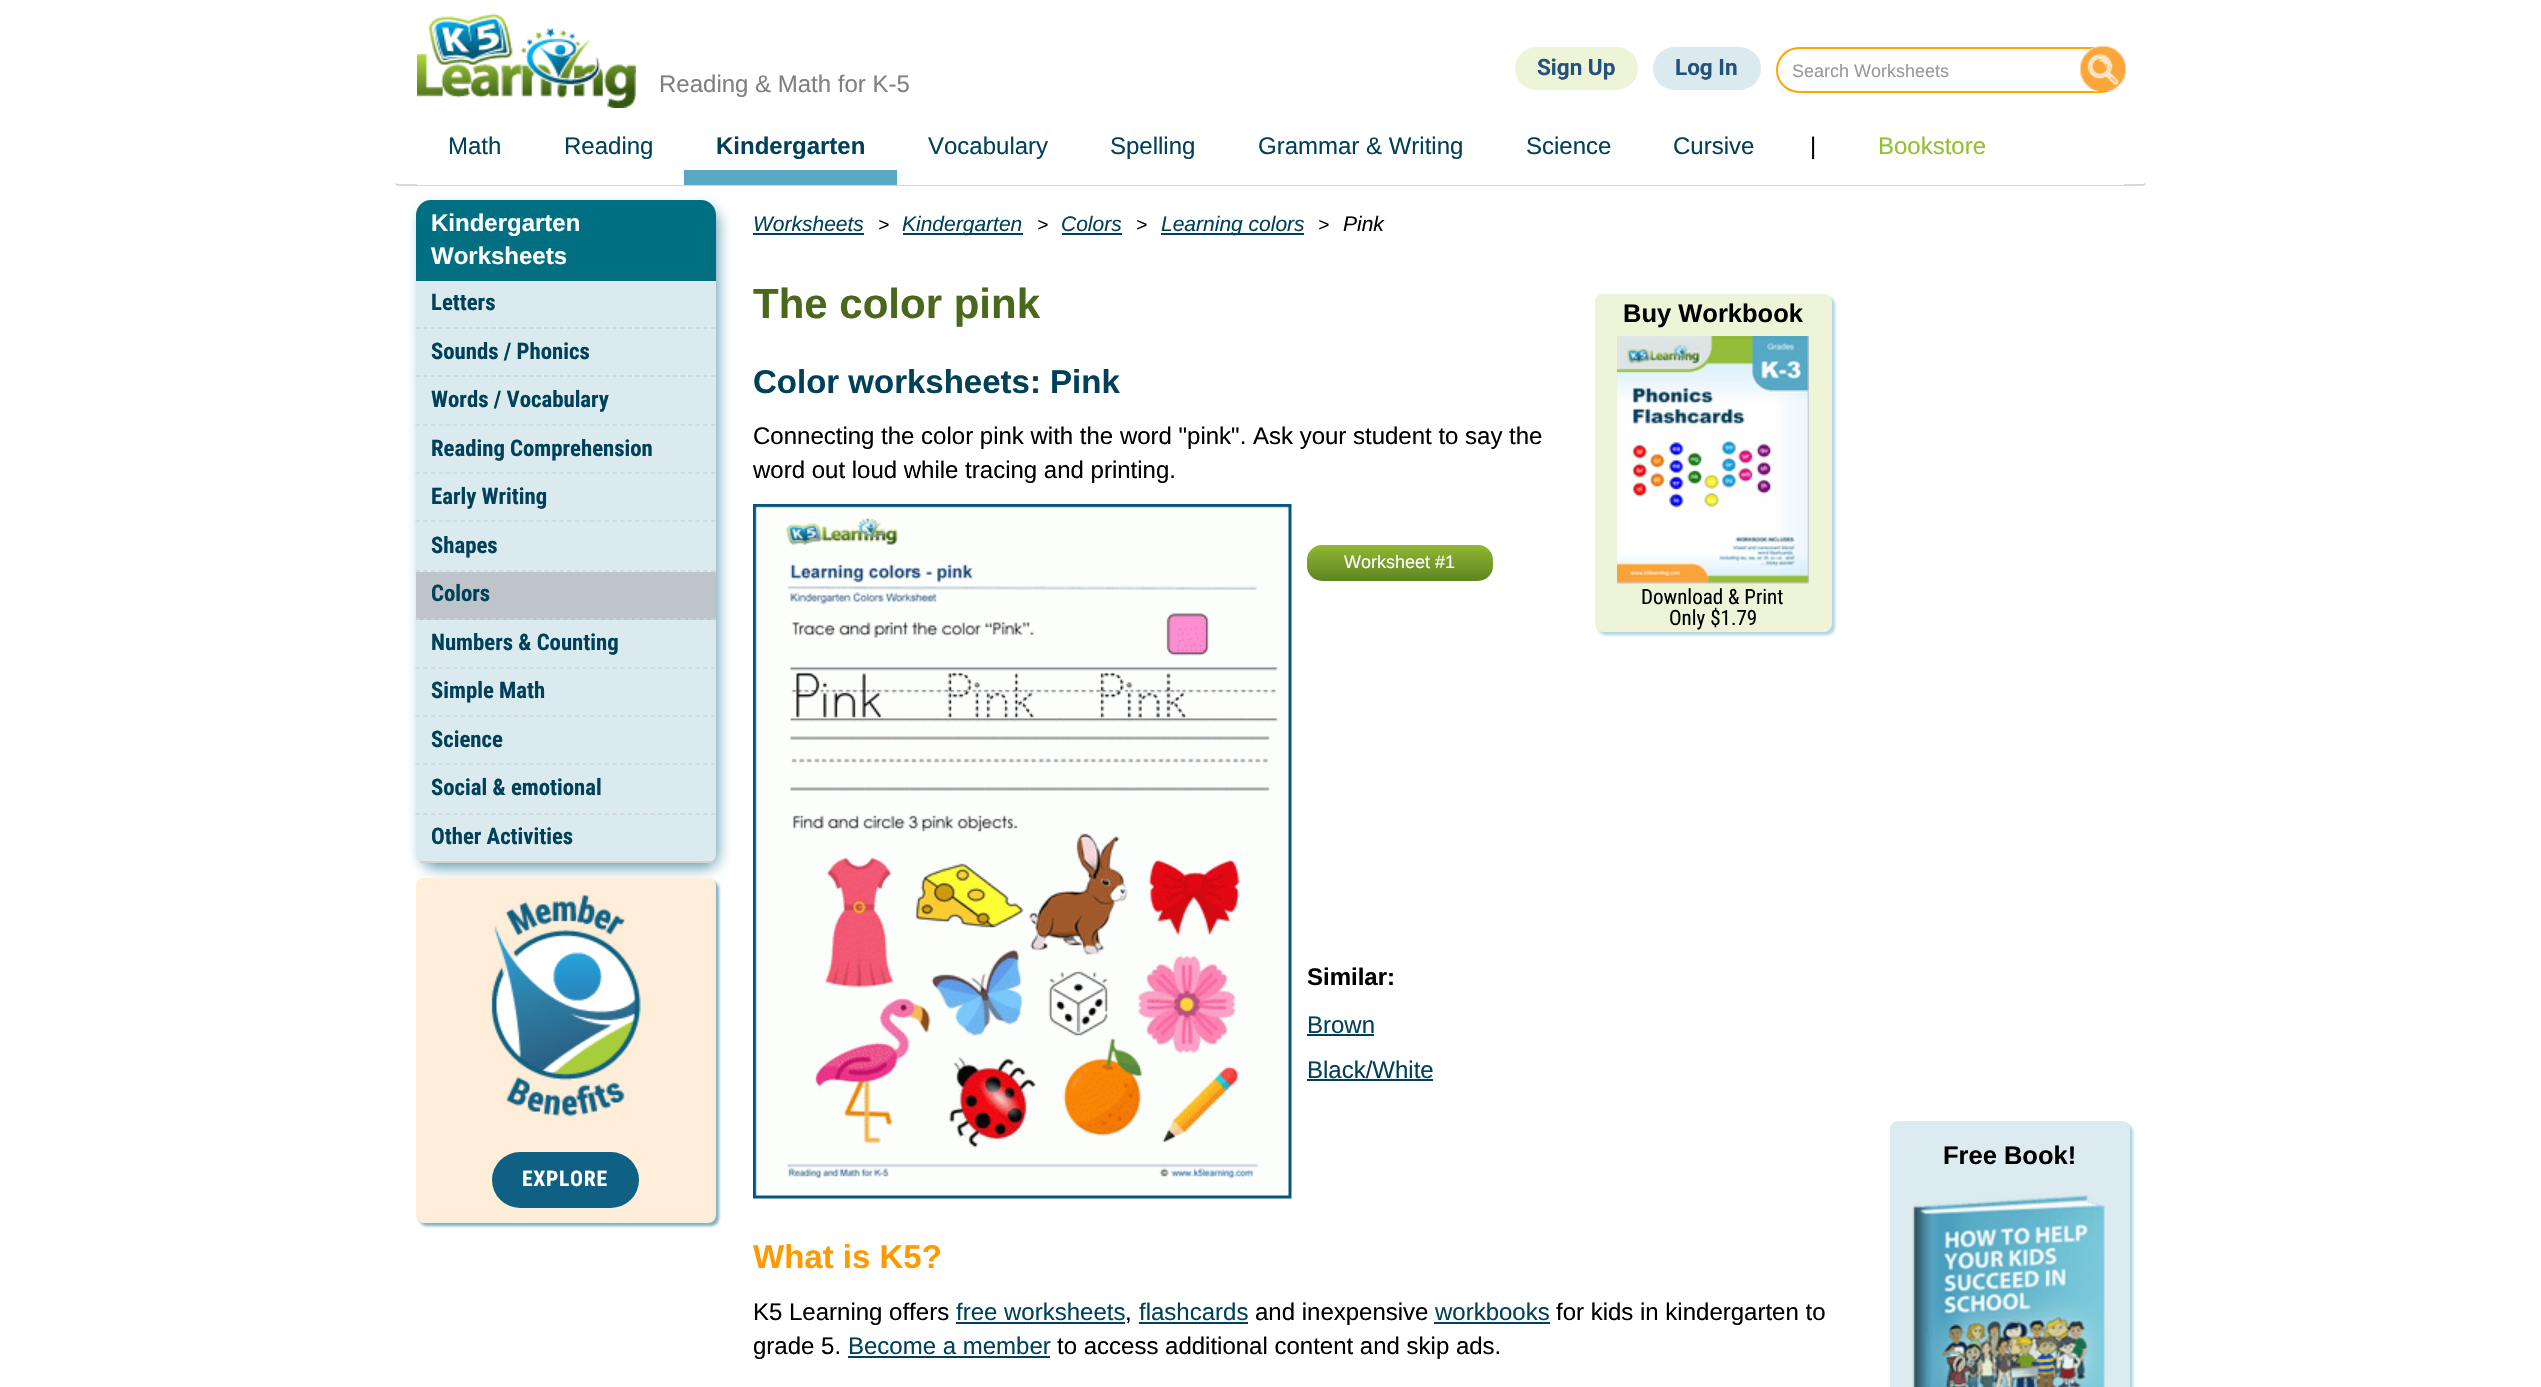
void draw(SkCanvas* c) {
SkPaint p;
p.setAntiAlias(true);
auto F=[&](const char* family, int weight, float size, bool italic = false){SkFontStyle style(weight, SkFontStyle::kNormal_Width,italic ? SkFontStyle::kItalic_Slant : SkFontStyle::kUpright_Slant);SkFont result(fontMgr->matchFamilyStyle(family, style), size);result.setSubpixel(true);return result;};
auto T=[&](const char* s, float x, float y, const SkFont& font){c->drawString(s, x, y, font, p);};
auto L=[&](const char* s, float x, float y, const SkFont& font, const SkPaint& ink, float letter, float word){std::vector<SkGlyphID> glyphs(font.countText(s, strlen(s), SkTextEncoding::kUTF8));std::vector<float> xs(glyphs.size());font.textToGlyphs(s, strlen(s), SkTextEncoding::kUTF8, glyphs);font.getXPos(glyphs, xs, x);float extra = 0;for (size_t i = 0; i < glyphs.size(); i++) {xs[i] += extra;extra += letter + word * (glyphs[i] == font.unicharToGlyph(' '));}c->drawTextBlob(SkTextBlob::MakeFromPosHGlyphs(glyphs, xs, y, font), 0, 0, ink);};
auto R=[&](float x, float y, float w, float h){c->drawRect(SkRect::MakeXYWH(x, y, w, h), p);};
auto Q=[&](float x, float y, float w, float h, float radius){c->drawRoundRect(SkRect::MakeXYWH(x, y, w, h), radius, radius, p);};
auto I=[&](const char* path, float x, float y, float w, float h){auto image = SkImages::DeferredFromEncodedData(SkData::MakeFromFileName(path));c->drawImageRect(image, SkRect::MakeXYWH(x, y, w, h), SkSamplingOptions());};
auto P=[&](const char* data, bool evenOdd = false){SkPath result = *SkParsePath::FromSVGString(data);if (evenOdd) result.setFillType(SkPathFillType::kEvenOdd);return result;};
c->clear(0xffffffff);
p.setStroke(true);
p.setStrokeWidth(1.5);
p.setColor(0xffcccccc);
c->drawPath(P("M2145.5 183.5c-1 1-2 1.5-3.5 1.5h-1743c-1.5 0-2.5-.5-3.5-1.5"),p);
p.setColor(0xffffffff);
c->drawPath(P("M395.5 183.5c-1-1-1.5-2-1.5-3.5v-174c0-1.5 .5-2.5 1.5-3.5c1-1 2-1.5 3.5-1.5h1743c1.5 0 2.5 .5 3.5 1.5c1 1 1.5 2 1.5 3.5v174c0 1.5-.5 2.5-1.5 3.5"),p);
I("1.png",417,13,219,95);
p.setStroke(false);
p.setColor(0xffeef4d7);
Q(1515,47,123,43,21.5);
auto f1 = F("Roboto",700,22.5);
p.setColor(0xff23527c);
T("Sign Up",1537,75,f1);
p.setColor(0xffdbeaee);
Q(1653,47,108,43,21.5);
p.setColor(0xff23527c);
T("Log In",1675,75,f1);
p.setStroke(true);
p.setStrokeWidth(2);
p.setColor(0xffffa500);
c->drawRoundRect(SkRect::MakeXYWH(1777,48,346,44),22,22,p);
auto f2 = F("Liberation Sans",400,18);
p.setStroke(false);
p.setColor(0xff999999);
T("Search Worksheets",1792,77,f2);
I("2.png",2080,46,46,46);
auto f3 = F("Liberation Sans",400,24);
p.setColor(0xff808080);
T("Reading & Math for K-5",659,92,f3);
p.setColor(0xffffffff);
R(417,184,1707,1);
p.setColor(0xff004159);
T("Math",448,154,f3);
T("Reading",564,154,f3);
p.setColor(0xff58aac4);
R(684,170,213,15);
auto f4 = F("Liberation Sans",700,24);
p.setColor(0xff004159);
T("Kindergarten",716,154,f4);
T("Vocabulary",928,154,f3);
T("Spelling",1110,154,f3);
T("Grammar & Writing",1258,154,f3);
T("Science",1526,154,f3);
T("Cursive",1673,154,f3);
p.setColor(0xff000000);
T("|",1810,154,f3);
p.setColor(0xff96bd33);
T("Bookstore",1878,154,f3);
p.setColor(0xad005f82);
p.setMaskFilter(SkMaskFilter::MakeBlur(kNormal_SkBlurStyle, 7.5));
c->drawRoundRect(SkRect::MakeXYWH(423,210,294,657),12,12,p);
p.setMaskFilter(nullptr);
p.setColor(0xff006f82);
Q(416,200,300,663,15);
p.setColor(0xffffffff);
T("Kindergarten",431,231,f4);
T("Worksheets",431,264,f4);
p.setColor(0xffdbeaee);
R(416,281,300,291);
p.setStroke(true);
p.setStrokeWidth(1.5);
p.setColor(0xffd3d3d3);
p.setPathEffect(SkDashPathEffect::Make({{4.5f,3.07f}}, 0));
c->drawPath(P("M415.5 328h300"),p);
p.setPathEffect(nullptr);
auto f5 = F("Roboto Condensed",700,22.75);
p.setStroke(false);
p.setColor(0xff004159);
T("Letters",431,310,f5);
p.setStroke(true);
p.setColor(0xffd3d3d3);
p.setPathEffect(SkDashPathEffect::Make({{4.5f,3.07f}}, 0));
c->drawPath(P("M415.5 376h300"),p);
p.setPathEffect(nullptr);
p.setStroke(false);
p.setColor(0xff004159);
T("Sounds / Phonics",431,359,f5);
p.setStroke(true);
p.setColor(0xffd3d3d3);
p.setPathEffect(SkDashPathEffect::Make({{4.5f,3.07f}}, 0));
c->drawPath(P("M415.5 425h300"),p);
p.setPathEffect(nullptr);
p.setStroke(false);
p.setColor(0xff004159);
T("Words / Vocabulary",431,407,f5);
p.setStroke(true);
p.setColor(0xffd3d3d3);
p.setPathEffect(SkDashPathEffect::Make({{4.5f,3.07f}}, 0));
c->drawPath(P("M415.5 473h300"),p);
p.setPathEffect(nullptr);
p.setStroke(false);
p.setColor(0xff004159);
T("Reading Comprehension",431,456,f5);
p.setStroke(true);
p.setColor(0xffd3d3d3);
p.setPathEffect(SkDashPathEffect::Make({{4.5f,3.07f}}, 0));
c->drawPath(P("M415.5 521h300"),p);
p.setPathEffect(nullptr);
p.setStroke(false);
p.setColor(0xff004159);
T("Early Writing",431,504,f5);
p.setStroke(true);
p.setColor(0xffd3d3d3);
p.setPathEffect(SkDashPathEffect::Make({{4.5f,3.07f}}, 0));
c->drawPath(P("M415.5 571h300"),p);
p.setPathEffect(nullptr);
p.setStroke(false);
p.setColor(0xff004159);
T("Shapes",431,553,f5);
p.setColor(0xffbdc4ca);
R(416,572,300,48);
p.setStroke(true);
p.setColor(0xffd3d3d3);
p.setPathEffect(SkDashPathEffect::Make({{4.5f,3.07f}}, 0));
c->drawPath(P("M415.5 619h300"),p);
p.setPathEffect(nullptr);
p.setStroke(false);
p.setColor(0xff004159);
T("Colors",431,601,f5);
p.setColor(0xffdbeaee);
R(416,620,300,195);
p.setStroke(true);
p.setColor(0xffd3d3d3);
p.setPathEffect(SkDashPathEffect::Make({{4.5f,3.07f}}, 0));
c->drawPath(P("M415.5 668h300"),p);
p.setPathEffect(nullptr);
p.setStroke(false);
p.setColor(0xff004159);
T("Numbers & Counting",431,650,f5);
p.setStroke(true);
p.setColor(0xffd3d3d3);
p.setPathEffect(SkDashPathEffect::Make({{4.5f,3.07f}}, 0));
c->drawPath(P("M415.5 716h300"),p);
p.setPathEffect(nullptr);
p.setStroke(false);
p.setColor(0xff004159);
T("Simple Math",431,698,f5);
p.setStroke(true);
p.setColor(0xffd3d3d3);
p.setPathEffect(SkDashPathEffect::Make({{4.5f,3.07f}}, 0));
c->drawPath(P("M415.5 764h300"),p);
p.setPathEffect(nullptr);
p.setStroke(false);
p.setColor(0xff004159);
T("Science",431,747,f5);
p.setStroke(true);
p.setColor(0xffd3d3d3);
p.setPathEffect(SkDashPathEffect::Make({{4.5f,3.07f}}, 0));
c->drawPath(P("M415.5 814h300"),p);
p.setPathEffect(nullptr);
p.setStroke(false);
p.setColor(0xff004159);
T("Social & emotional",431,795,f5);
p.setColor(0xffdbeaee);
c->drawPath(P("M416 815h300v39c0 5-4 9-9 9h-282c-5 0-9-4-9-9z"),p);
p.setColor(0xffd3d3d3);
R(420,861,291,2);
p.setColor(0xff004159);
T("Other Activities",431,844,f5);
p.setColor(0x80006080);
p.setMaskFilter(SkMaskFilter::MakeBlur(kNormal_SkBlurStyle, 1.5));
c->drawRoundRect(SkRect::MakeXYWH(419,881,300,345),8,8,p);
p.setMaskFilter(nullptr);
p.setColor(0xfffeedd9);
Q(416,878,300,345,8);
I("3.png",491,894,150,223);
p.setColor(0xff106083);
Q(492,1152,147,56,28);
auto f6 = F("Roboto Condensed",700,21.5);
p.setColor(0xffffffff);
L("EXPLORE",522,1186,f6,p,.75,0);
auto f7 = F("Liberation Sans",400,21,true);
p.setColor(0xff004159);
T("Worksheets",753,231,f7);
R(753,233,111,2);
auto f8 = F("Liberation Sans",400,19,true);
p.setColor(0xff000000);
T(">",878,231,f8);
p.setColor(0xff004159);
R(903,233,120,2);
T("Kindergarten",902,231,f7);
p.setColor(0xff000000);
T(">",1037,231,f8);
p.setColor(0xff004159);
T("Colors",1061,231,f7);
R(1062,233,60,2);
p.setColor(0xff000000);
T(">",1136,231,f8);
p.setColor(0xff004159);
R(1161,233,143,2);
T("Learning colors",1161,231,f7);
p.setColor(0xff000000);
T(">",1318,231,f8);
T("Pink",1343,231,f7);
auto f9 = F("Liberation Sans",700,42);
p.setColor(0xff4a681b);
T("The color pink",753,318,f9);
p.setColor(0x8059aac5);
p.setMaskFilter(SkMaskFilter::MakeBlur(kNormal_SkBlurStyle, 1.5));
c->drawRoundRect(SkRect::MakeXYWH(1598,297,237,338),8,8,p);
p.setMaskFilter(nullptr);
p.setColor(0xffeef4d7);
Q(1595,294,237,338,8);
auto f10 = F("Liberation Sans",700,25.5);
p.setColor(0xff000000);
T("Buy Workbook",1623,322,f10);
I("4.png",1617,336,192,248);
auto f11 = F("Roboto Condensed",400,21);
T("Download & Print",1641,604,f11);
T("Only $1.79",1669,625,f11);
auto f12 = F("Liberation Sans",700,33);
p.setColor(0xff004159);
T("Color worksheets: Pink",753,393,f12);
p.setColor(0xff000000);
T("Connecting the color pink with the word \"pink\". Ask your student to say the",753,444,f3);
T("word out loud while tracing and printing.",753,478,f3);
I("5.png",753,504,539,695);
{
const SkColor colors[] = {0xff5f8522,0xff638924,0xff688e25,0xff6c9227,0xff719728,0xff759b29,0xff7aa02b,0xff7ea42c,0xff83a92e,0xff88ae30,0xff8db431,0xff92b933};
const float stops[] = {0,.09,.18,.27,.36,.45,.55,.64,.73,.82,.91,1};
const SkPoint ends[] = {{1400,581}, {1400,545}};
p.setShader(SkGradientShader::MakeLinear(ends, colors, stops, 12, SkTileMode::kClamp));
p.setAlpha(255);
}
Q(1307,545,186,36,15);
p.setShader(nullptr);
p.setColor(0xffffffff);
T("Worksheet #1",1344,568,f2);
p.setColor(0xff000000);
T("Similar:",1307,985,f4);
p.setColor(0xff004159);
T("Brown",1307,1033,f3);
R(1307,1034,67,2);
T("Black/White",1307,1078,f3);
R(1307,1079,126,2);
p.setColor(0xffff9900);
T("What is K5?",753,1268,f12);
p.setColor(0xff000000);
T("K5 Learning offers",753,1320,f3);
p.setColor(0xff004159);
T("free worksheets",956,1320,f3);
R(956,1322,169,2);
p.setColor(0xff000000);
T(",",1125,1320,f3);
p.setColor(0xff004159);
T("flashcards",1139,1320,f3);
R(1139,1322,109,2);
p.setColor(0xff000000);
T("and inexpensive",1255,1320,f3);
p.setColor(0xff004159);
T("workbooks",1435,1320,f3);
R(1434,1322,116,2);
p.setColor(0xff000000);
T("for kids in kindergarten to",1556,1320,f3);
T("grade 5.",753,1354,f3);
p.setColor(0xff004159);
T("Become a member",848,1354,f3);
R(848,1356,202,2);
p.setColor(0xff000000);
T("to access additional content and skip ads.",1057,1354,f3);
p.setColor(0x8059aac5);
p.setMaskFilter(SkMaskFilter::MakeBlur(kNormal_SkBlurStyle, 1.5));
c->drawRoundRect(SkRect::MakeXYWH(1893,1124,240,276),8,8,p);
p.setMaskFilter(nullptr);
p.setColor(0xffdcebef);
Q(1890,1121,240,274,8);
p.setColor(0xff000000);
T("Free Book!",1943,1164,f10);
I("6.png",1912,1195,193,192);
}
